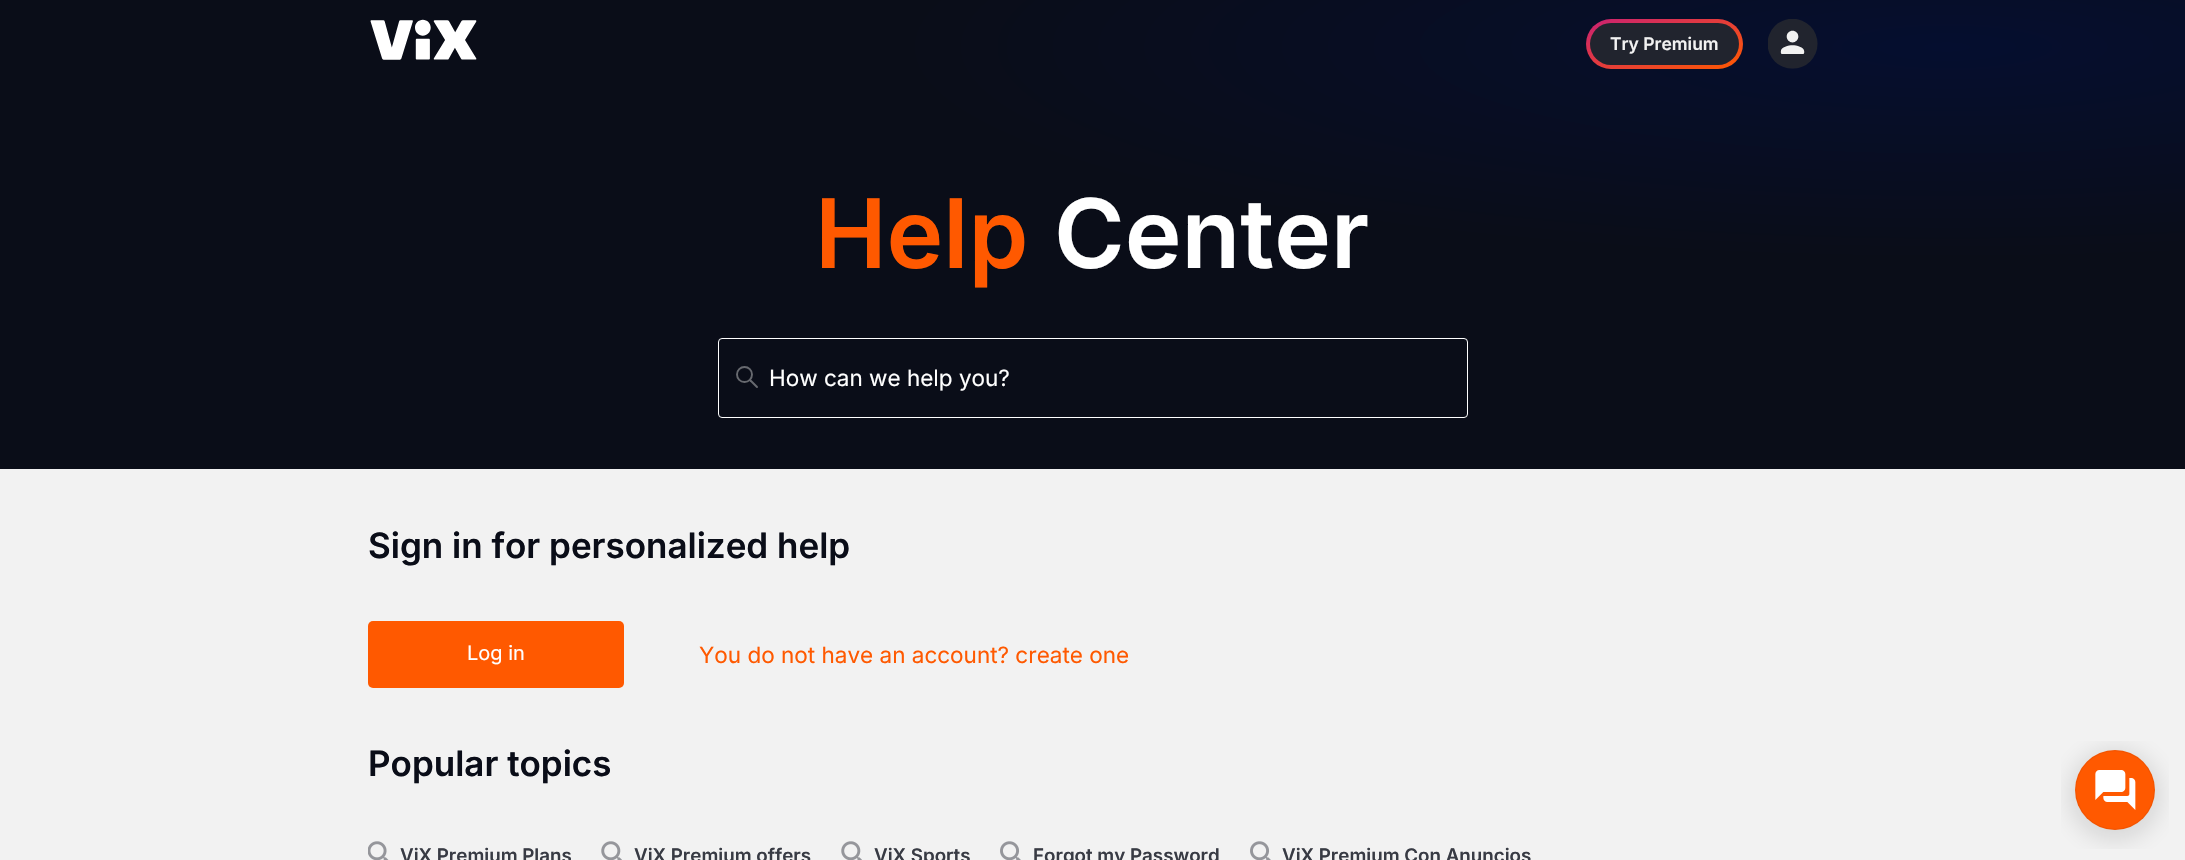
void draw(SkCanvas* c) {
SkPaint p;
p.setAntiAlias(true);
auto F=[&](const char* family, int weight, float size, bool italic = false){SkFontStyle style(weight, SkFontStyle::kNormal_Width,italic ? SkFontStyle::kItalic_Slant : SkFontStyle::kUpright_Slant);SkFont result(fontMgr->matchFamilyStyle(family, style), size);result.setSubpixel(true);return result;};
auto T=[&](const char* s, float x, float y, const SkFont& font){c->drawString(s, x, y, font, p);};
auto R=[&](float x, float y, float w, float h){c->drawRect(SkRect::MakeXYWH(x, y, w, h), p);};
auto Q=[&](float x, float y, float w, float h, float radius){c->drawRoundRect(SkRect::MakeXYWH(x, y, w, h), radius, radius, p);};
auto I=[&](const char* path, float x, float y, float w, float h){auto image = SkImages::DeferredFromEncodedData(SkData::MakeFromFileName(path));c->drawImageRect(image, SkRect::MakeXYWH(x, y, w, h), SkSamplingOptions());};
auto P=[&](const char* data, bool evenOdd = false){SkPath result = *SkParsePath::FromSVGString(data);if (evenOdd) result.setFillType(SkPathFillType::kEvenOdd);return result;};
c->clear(0xfff2f2f2);
{
const SkColor colors[] = {0xff050e2f,0xff0a0d18};
const float stops[] = {0,1};
SkMatrix m = SkMatrix::Translate(1947,47).preScale(1055,213);
p.setShader(SkGradientShader::MakeRadial({0, 0}, 1, colors, stops, 2, SkTileMode::kClamp, 0, &m));
p.setAlpha(255);
}
R(0,0,2185,469);
I("1.png",370,19,107,41);
{
const SkColor colors[] = {0xffca2173,0xffff5900};
const float stops[] = {0,1};
const SkPoint ends[] = {{1647,-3.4}, {1682,91}};
p.setShader(SkGradientShader::MakeLinear(ends, colors, stops, 2, SkTileMode::kClamp));
p.setAlpha(255);
}
Q(1586,19,157,50,25);
p.setShader(nullptr);
p.setColor(0xff21242e);
Q(1590,23,149,42,21);
auto f1 = F("Inter",600,17.5);
p.setColor(0xfff2f2f2);
T("Try Premium",1610,50,f1);
I("2.png",1768,19,50,50);
auto f2 = F("Inter",600,96);
p.setColor(0xffff5900);
T("Help",815,268,f2);
p.setColor(0xffffffff);
T("Center",1054,268,f2);
p.setStroke(true);
p.setStrokeWidth(1);
c->drawRoundRect(SkRect::MakeXYWH(718.5,338.5,749,79),3.5,3.5,p);
p.setStrokeWidth(1.9);
p.setColor(0xff67696f);
c->drawCircle(744.5,374.5,7.5,p);
p.setStrokeCap(SkPaint::kRound_Cap);
c->drawPath(P("M757 387l-6.5-6.5"),p);
auto f3 = F("Inter",400,22.5);
p.setStroke(false);
p.setColor(0xffffffff);
T("How can we help you?",769,386,f3);
auto f4 = F("Inter",600,35);
p.setColor(0xff0a0d18);
T("Sign in for personalized help",368,558,f4);
p.setColor(0xffff5900);
Q(368,621,256,67,5);
auto f5 = F("Inter",400,20);
p.setColor(0xffffffff);
T("Log in",467,660,f5);
p.setColor(0xffff5900);
T("You do not have an account? create one",699,663,f3);
p.setColor(0xff0a0d18);
T("Popular topics",368,776,f4);
I("3.png",368,841,21,19);
auto f6 = F("Inter",600,18.75);
p.setColor(0xff383b44);
T("ViX Premium Plans",400,862,f6);
I("4.png",601,841,21,19);
T("ViX Premium offers",634,862,f6);
I("4.png",841,841,21,19);
T("ViX Sports",874,862,f6);
I("5.png",1000,841,21,19);
T("Forgot my Password",1033,862,f6);
I("5.png",1250,841,21,19);
T("ViX Premium Con Anuncios",1282,862,f6);
I("6.png",2061,741,108,108);
}
